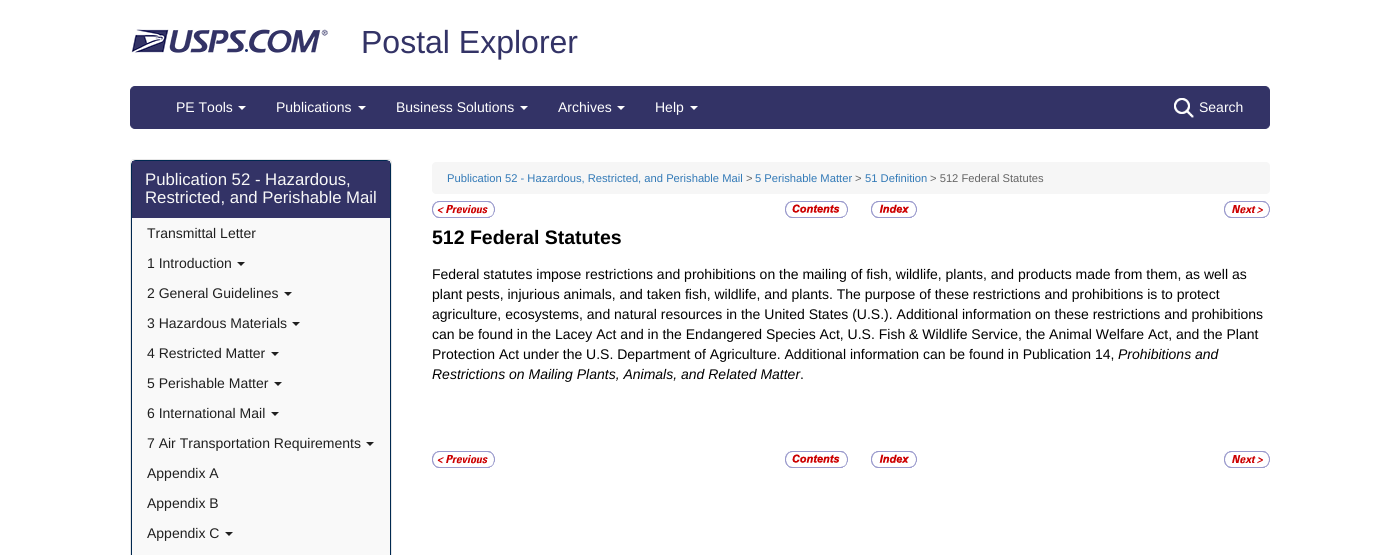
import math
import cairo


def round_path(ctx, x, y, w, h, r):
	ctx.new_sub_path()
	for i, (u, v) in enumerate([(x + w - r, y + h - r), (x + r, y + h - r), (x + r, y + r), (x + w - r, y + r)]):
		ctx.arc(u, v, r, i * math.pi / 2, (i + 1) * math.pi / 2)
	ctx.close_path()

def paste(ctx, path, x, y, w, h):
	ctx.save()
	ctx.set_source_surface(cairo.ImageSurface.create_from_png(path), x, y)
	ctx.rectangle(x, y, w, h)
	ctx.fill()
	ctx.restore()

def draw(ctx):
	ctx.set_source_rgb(1, 1, 1)
	ctx.paint()
	paste(ctx, 'media/1.png', 131, 29, 197, 24)
	ctx.select_font_face('Liberation Sans')
	ctx.set_font_size(32)
	ctx.set_source_rgb(0.2, 0.2, 0.4)
	ctx.move_to(361, 53)
	ctx.show_text('Postal Explorer')
	round_path(ctx, 130.5, 86.5, 1139, 42, 4.5)
	ctx.fill_preserve()
	ctx.set_line_width(1)
	ctx.stroke()
	ctx.set_font_size(14)
	ctx.set_source_rgb(1, 1, 1)
	ctx.move_to(176, 112)
	ctx.show_text('PE Tools')
	ctx.new_path()
	ctx.move_to(238, 106)
	ctx.line_to(246, 106)
	ctx.line_to(242, 110)
	ctx.close_path()
	ctx.fill()
	ctx.move_to(276, 112)
	ctx.show_text('Publications')
	ctx.new_path()
	ctx.move_to(358, 106)
	ctx.line_to(366, 106)
	ctx.line_to(362, 110)
	ctx.close_path()
	ctx.fill()
	ctx.move_to(396, 112)
	ctx.show_text('Business Solutions')
	ctx.new_path()
	ctx.move_to(520, 106)
	ctx.line_to(528, 106)
	ctx.line_to(524, 110)
	ctx.close_path()
	ctx.fill()
	ctx.move_to(558, 112)
	ctx.show_text('Archives')
	ctx.new_path()
	ctx.move_to(617, 106)
	ctx.line_to(625, 106)
	ctx.line_to(621, 110)
	ctx.close_path()
	ctx.fill()
	ctx.move_to(655, 112)
	ctx.show_text('Help')
	ctx.new_path()
	ctx.move_to(690, 106)
	ctx.line_to(698, 106)
	ctx.line_to(694, 110)
	ctx.close_path()
	ctx.fill()
	paste(ctx, 'media/2.png', 1174, 98, 20, 20)
	ctx.move_to(1199, 112)
	ctx.show_text('Search')
	ctx.set_source_rgb(0.973, 0.973, 0.973)
	round_path(ctx, 130.5, 159.5, 261, 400, 3.5)
	ctx.fill_preserve()
	ctx.set_source_rgb(0.906, 0.906, 0.906)
	ctx.stroke()
	round_path(ctx, 131.5, 160.5, 259, 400, 4.5)
	ctx.set_source_rgb(0, 0.157, 0.314)
	ctx.stroke()
	ctx.set_source_rgb(0.2, 0.2, 0.4)
	ctx.rectangle(132, 161, 258, 57)
	ctx.fill()
	ctx.set_font_size(16.75)
	ctx.set_source_rgb(0.969, 0.969, 0.969)
	ctx.move_to(145, 185)
	ctx.show_text('Publication 52 - Hazardous,')
	ctx.move_to(145, 203)
	ctx.show_text('Restricted, and Perishable Mail')
	ctx.set_font_size(14)
	ctx.set_source_rgb(0.125, 0.125, 0.125)
	ctx.move_to(147, 238)
	ctx.show_text('Transmittal Letter')
	ctx.move_to(147, 268)
	ctx.show_text('1 Introduction')
	ctx.new_path()
	ctx.move_to(237, 262)
	ctx.line_to(245, 262)
	ctx.line_to(241, 266)
	ctx.close_path()
	ctx.fill()
	ctx.move_to(147, 298)
	ctx.show_text('2 General Guidelines')
	ctx.new_path()
	ctx.move_to(284, 292)
	ctx.line_to(292, 292)
	ctx.line_to(288, 296)
	ctx.close_path()
	ctx.fill()
	ctx.move_to(147, 328)
	ctx.show_text('3 Hazardous Materials')
	ctx.new_path()
	ctx.move_to(292, 322)
	ctx.line_to(300, 322)
	ctx.line_to(296, 326)
	ctx.close_path()
	ctx.fill()
	ctx.move_to(147, 358)
	ctx.show_text('4 Restricted Matter')
	ctx.new_path()
	ctx.move_to(271, 352)
	ctx.line_to(279, 352)
	ctx.line_to(275, 356)
	ctx.close_path()
	ctx.fill()
	ctx.move_to(147, 388)
	ctx.show_text('5 Perishable Matter')
	ctx.new_path()
	ctx.move_to(274, 382)
	ctx.line_to(282, 382)
	ctx.line_to(278, 386)
	ctx.close_path()
	ctx.fill()
	ctx.move_to(147, 418)
	ctx.show_text('6 International Mail')
	ctx.new_path()
	ctx.move_to(271, 412)
	ctx.line_to(279, 412)
	ctx.line_to(275, 416)
	ctx.close_path()
	ctx.fill()
	ctx.move_to(147, 448)
	ctx.show_text('7 Air Transportation Requirements')
	ctx.new_path()
	ctx.move_to(366, 442)
	ctx.line_to(374, 442)
	ctx.line_to(370, 446)
	ctx.close_path()
	ctx.fill()
	for x, y, s in [
		(147, 478, 'Appendix A'),
		(147, 508, 'Appendix B'),
		(147, 538, 'Appendix C'),
	]:
		ctx.move_to(x, y)
		ctx.show_text(s)
	ctx.new_path()
	ctx.move_to(225, 532)
	ctx.line_to(233, 532)
	ctx.line_to(229, 536)
	ctx.close_path()
	ctx.fill()
	ctx.set_source_rgb(0.961, 0.961, 0.961)
	round_path(ctx, 432, 162, 838, 32, 4)
	ctx.fill()
	ctx.set_font_size(11.2)
	ctx.set_source_rgb(0.2, 0.478, 0.718)
	ctx.move_to(447, 182)
	ctx.show_text('Publication 52 - Hazardous, Restricted, and Perishable Mail')
	ctx.set_source_rgb(0.4, 0.4, 0.4)
	ctx.move_to(746, 182)
	ctx.show_text('>')
	ctx.set_source_rgb(0.2, 0.478, 0.718)
	ctx.move_to(755, 182)
	ctx.show_text('5 Perishable Matter')
	ctx.set_source_rgb(0.4, 0.4, 0.4)
	ctx.move_to(855, 182)
	ctx.show_text('>')
	ctx.set_source_rgb(0.2, 0.478, 0.718)
	ctx.move_to(865, 182)
	ctx.show_text('51 Definition')
	ctx.set_source_rgb(0.4, 0.4, 0.4)
	ctx.move_to(930, 182)
	ctx.show_text('> 512 Federal Statutes')
	paste(ctx, 'media/3.png', 432, 201, 63, 17)
	paste(ctx, 'media/4.png', 785, 201, 63, 17)
	paste(ctx, 'media/5.png', 871, 201, 46, 17)
	paste(ctx, 'media/6.png', 1224, 201, 46, 17)
	ctx.select_font_face('Liberation Sans', cairo.FONT_SLANT_NORMAL, cairo.FONT_WEIGHT_BOLD)
	ctx.set_font_size(19.5)
	ctx.set_source_rgb(0, 0, 0)
	ctx.move_to(432, 244)
	ctx.show_text('512 Federal Statutes')
	ctx.select_font_face('Liberation Sans')
	ctx.set_font_size(14)
	for x, y, s in [
		(432, 279, 'Federal statutes impose restrictions and prohibitions on the mailing of fish, wildlife, plants, and products made from them, as well as'),
		(432, 299, 'plant pests, injurious animals, and taken fish, wildlife, and plants. The purpose of these restrictions and prohibitions is to protect'),
		(432, 319, 'agriculture, ecosystems, and natural resources in the United States (U.S.). Additional information on these restrictions and prohibitions'),
		(432, 339, 'can be found in the Lacey Act and in the Endangered Species Act, U.S. Fish & Wildlife Service, the Animal Welfare Act, and the Plant'),
		(432, 359, 'Protection Act under the U.S. Department of Agriculture. Additional information can be found in Publication 14,'),
	]:
		ctx.move_to(x, y)
		ctx.show_text(s)
	ctx.select_font_face('Liberation Sans', cairo.FONT_SLANT_ITALIC)
	ctx.move_to(1118, 359)
	ctx.show_text('Prohibitions and')
	ctx.move_to(432, 379)
	ctx.show_text('Restrictions on Mailing Plants, Animals, and Related Matter')
	ctx.select_font_face('Liberation Sans')
	ctx.move_to(800, 379)
	ctx.show_text('.')
	paste(ctx, 'media/3.png', 432, 451, 63, 17)
	paste(ctx, 'media/4.png', 785, 451, 63, 17)
	paste(ctx, 'media/5.png', 871, 451, 46, 17)
	paste(ctx, 'media/6.png', 1224, 451, 46, 17)


surface = cairo.ImageSurface(cairo.FORMAT_RGB24, 1399, 555)
ctx = cairo.Context(surface)
options = cairo.FontOptions()
options.set_hint_metrics(cairo.HINT_METRICS_OFF)
options.set_hint_style(cairo.HINT_STYLE_NONE)
ctx.set_font_options(options)
ctx.set_miter_limit(4)
draw(ctx)
surface.write_to_png('image.png')
